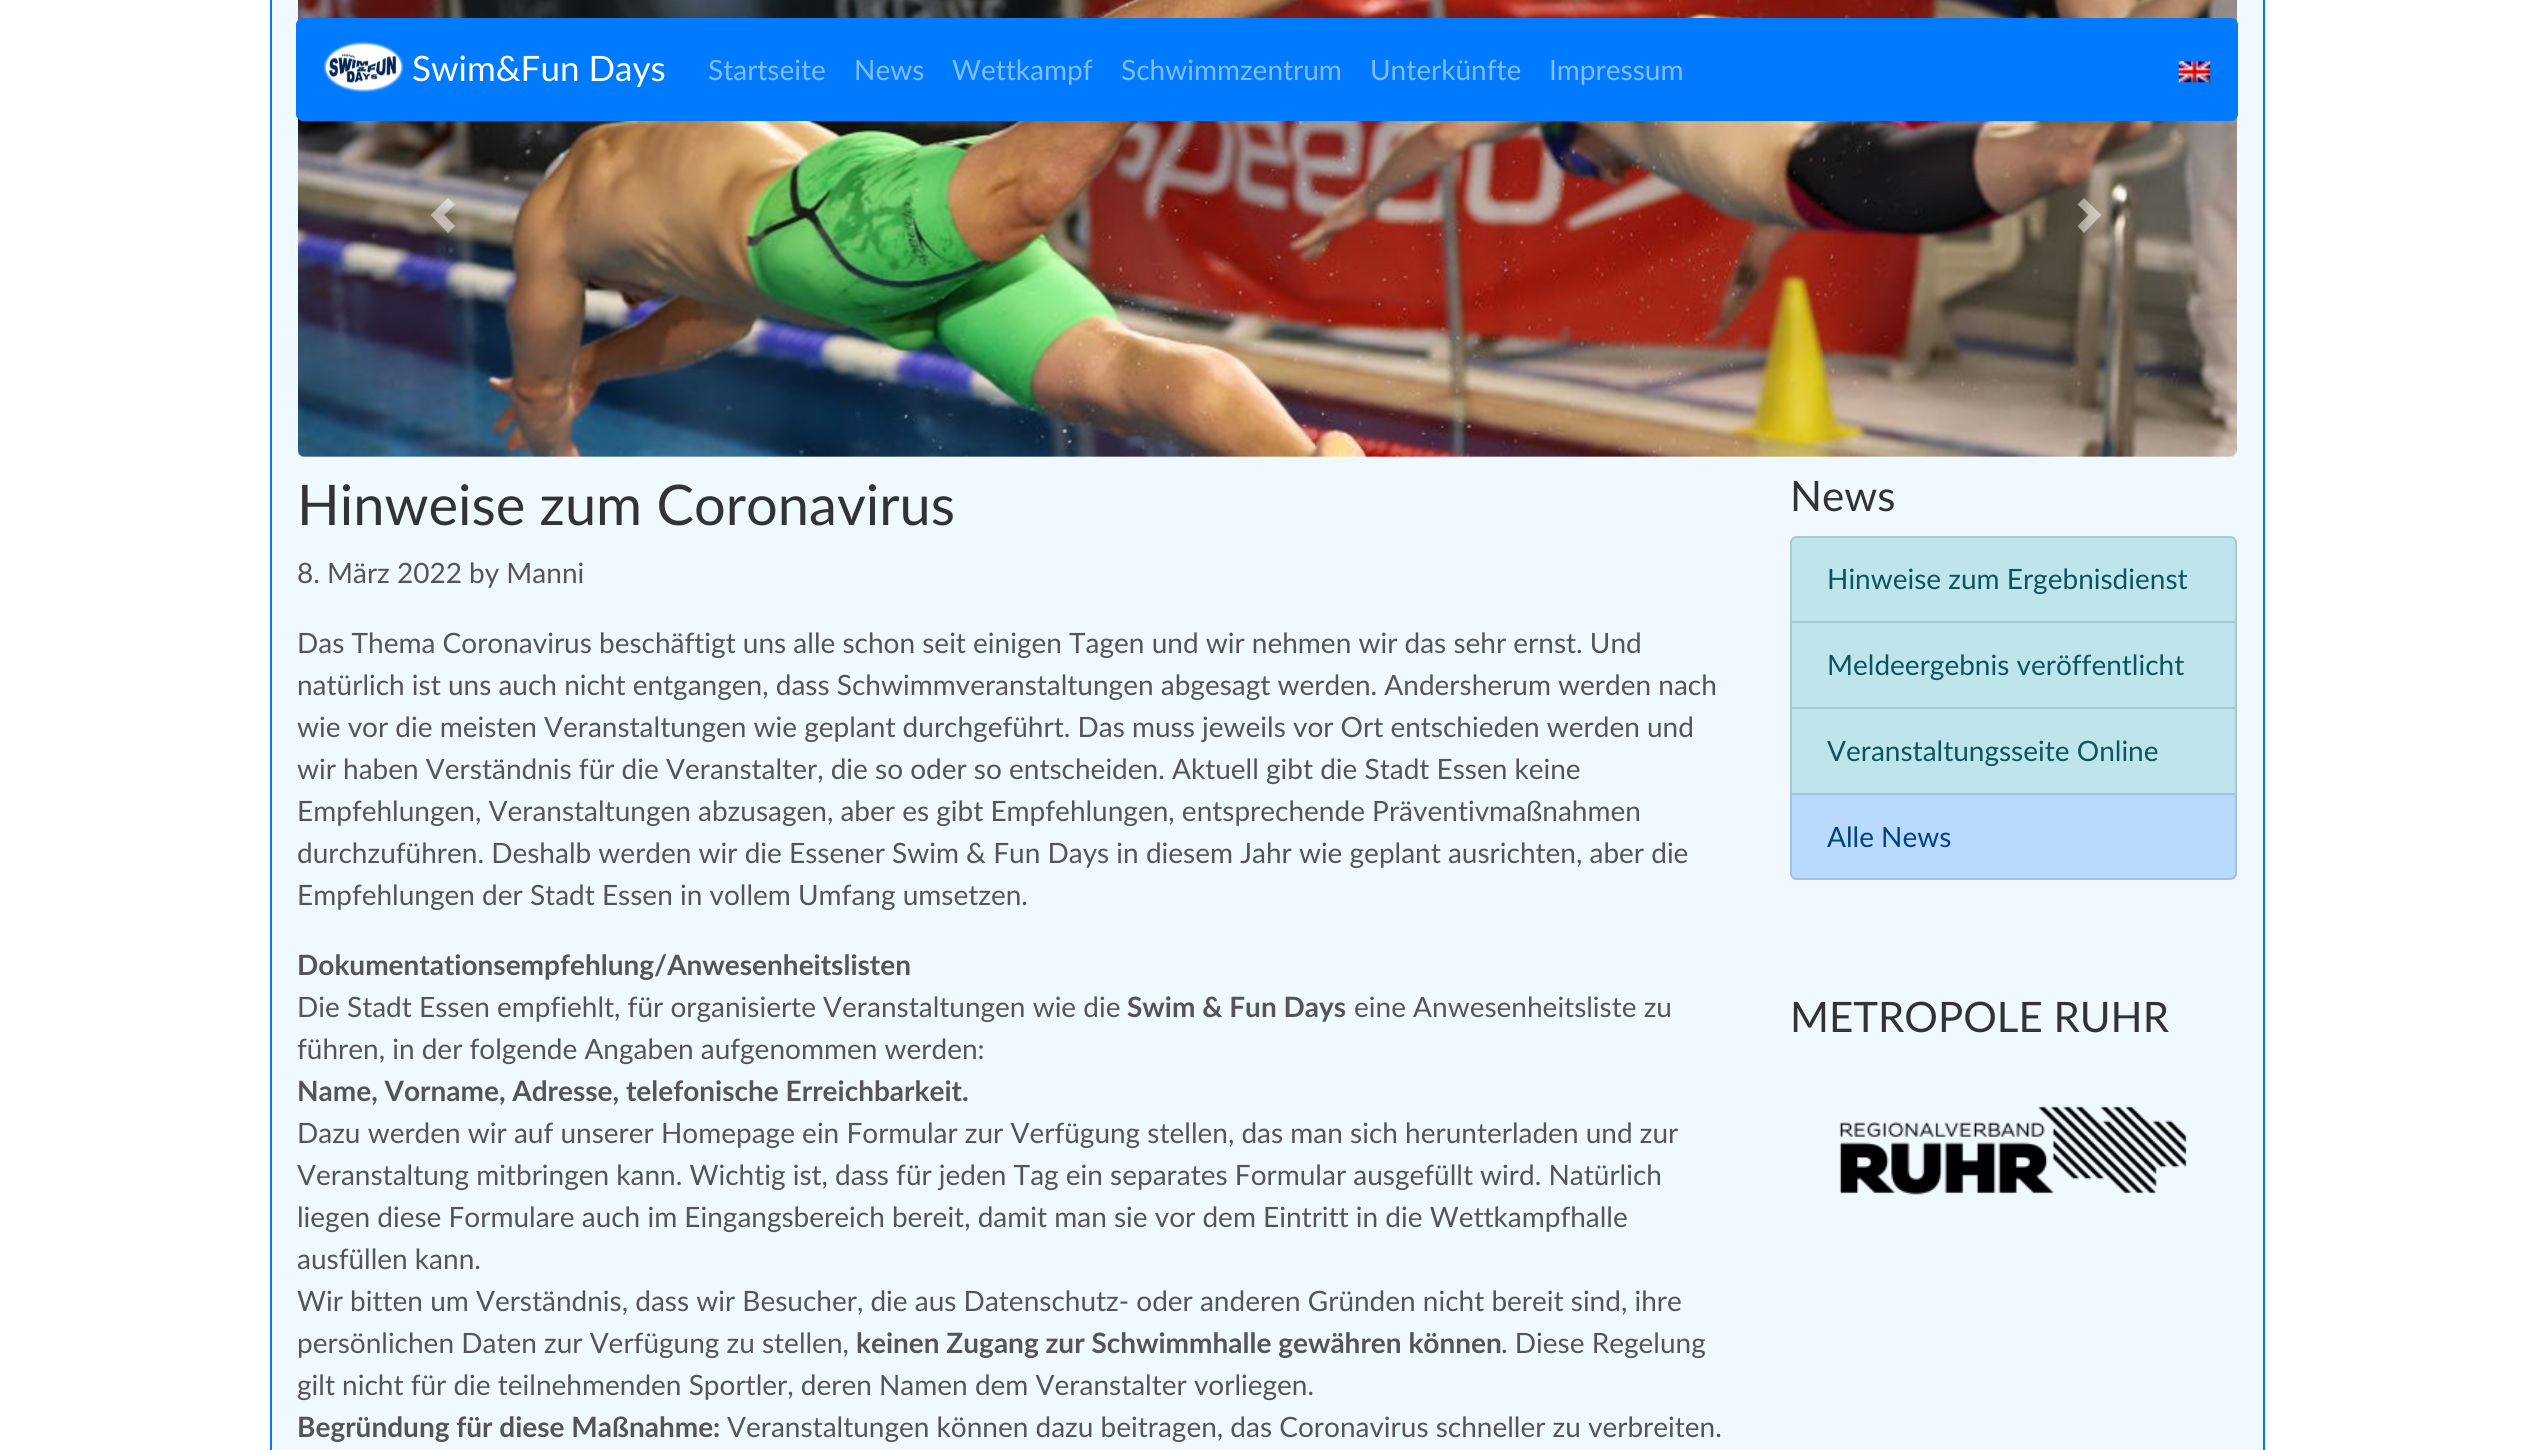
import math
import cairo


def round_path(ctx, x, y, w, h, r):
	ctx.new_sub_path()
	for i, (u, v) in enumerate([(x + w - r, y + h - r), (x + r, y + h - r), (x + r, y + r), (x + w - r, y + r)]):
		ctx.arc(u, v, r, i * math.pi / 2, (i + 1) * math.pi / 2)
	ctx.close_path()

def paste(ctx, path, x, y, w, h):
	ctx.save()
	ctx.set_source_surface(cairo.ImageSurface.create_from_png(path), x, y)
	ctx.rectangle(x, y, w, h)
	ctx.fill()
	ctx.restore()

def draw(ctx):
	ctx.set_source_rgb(1, 1, 1)
	ctx.paint()
	ctx.set_source_rgb(0.941, 0.973, 1)
	ctx.rectangle(271, -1, 1993, 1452)
	ctx.fill_preserve()
	ctx.set_source_rgb(0, 0.482, 1)
	ctx.stroke()
	paste(ctx, 'media/3.png', 298, 0, 1939, 457)
	round_path(ctx, 296, 18, 1942, 103, 7)
	ctx.fill()
	paste(ctx, 'media/1.png', 323, 41, 81, 52)
	ctx.select_font_face('Lato')
	ctx.set_font_size(35)
	ctx.set_source_rgb(1, 1, 1)
	ctx.move_to(412, 81)
	ctx.show_text('Swim&Fun Days')
	ctx.set_font_size(28)
	ctx.set_source_rgb(0.502, 0.741, 1)
	for x, y, s in [
		(708, 80, 'Startseite'),
		(854, 80, 'News'),
		(952, 80, 'Wettkampf'),
		(1121, 80, 'Schwimmzentrum'),
		(1370, 80, 'Unterkünfte'),
		(1549, 80, 'Impressum'),
	]:
		ctx.move_to(x, y)
		ctx.show_text(s)
	paste(ctx, 'media/2.png', 2178, 61, 33, 22)
	ctx.set_source_rgba(1, 1, 1, 0.5)
	ctx.new_path()
	ctx.move_to(448, 198)
	ctx.line_to(430.5, 215)
	ctx.line_to(448, 233)
	ctx.line_to(455, 226)
	ctx.line_to(444, 215)
	ctx.line_to(455, 204.5)
	ctx.close_path()
	ctx.fill()
	ctx.new_path()
	ctx.move_to(2084, 198)
	ctx.line_to(2077.5, 204.5)
	ctx.line_to(2088.5, 215)
	ctx.line_to(2077.5, 226)
	ctx.line_to(2084, 233)
	ctx.line_to(2101.5, 215)
	ctx.close_path()
	ctx.fill()
	ctx.set_font_size(56)
	ctx.set_source_rgb(0.2, 0.2, 0.2)
	ctx.move_to(297, 525)
	ctx.show_text('Hinweise zum Coronavirus')
	ctx.set_font_size(28)
	ctx.set_source_rgb(0.333, 0.333, 0.333)
	for x, y, s in [
		(297, 583, '8. März 2022 by Manni'),
		(297, 653, 'Das Thema Coronavirus beschäftigt uns alle schon seit einigen Tagen und wir nehmen wir das sehr ernst. Und'),
		(297, 695, 'natürlich ist uns auch nicht entgangen, dass Schwimmveranstaltungen abgesagt werden. Andersherum werden nach'),
		(297, 737, 'wie vor die meisten Veranstaltungen wie geplant durchgeführt. Das muss jeweils vor Ort entschieden werden und'),
		(297, 779, 'wir haben Verständnis für die Veranstalter, die so oder so entscheiden. Aktuell gibt die Stadt Essen keine'),
		(297, 821, 'Empfehlungen, Veranstaltungen abzusagen, aber es gibt Empfehlungen, entsprechende Präventivmaßnahmen'),
		(297, 863, 'durchzuführen. Deshalb werden wir die Essener Swim & Fun Days in diesem Jahr wie geplant ausrichten, aber die'),
		(297, 905, 'Empfehlungen der Stadt Essen in vollem Umfang umsetzen.'),
	]:
		ctx.move_to(x, y)
		ctx.show_text(s)
	ctx.select_font_face('Lato', cairo.FONT_SLANT_NORMAL, cairo.FONT_WEIGHT_BOLD)
	ctx.move_to(297, 975)
	ctx.show_text('Dokumentationsempfehlung/Anwesenheitslisten')
	ctx.select_font_face('Lato')
	ctx.move_to(297, 1017)
	ctx.show_text('Die Stadt Essen empfiehlt, für organisierte Veranstaltungen wie die')
	ctx.select_font_face('Lato', cairo.FONT_SLANT_NORMAL, cairo.FONT_WEIGHT_BOLD)
	ctx.move_to(1127, 1017)
	ctx.show_text('Swim & Fun Days')
	ctx.select_font_face('Lato')
	ctx.move_to(1354, 1017)
	ctx.show_text('eine Anwesenheitsliste zu')
	ctx.move_to(297, 1059)
	ctx.show_text('führen, in der folgende Angaben aufgenommen werden:')
	ctx.select_font_face('Lato', cairo.FONT_SLANT_NORMAL, cairo.FONT_WEIGHT_BOLD)
	ctx.move_to(297, 1101)
	ctx.show_text('Name, Vorname, Adresse, telefonische Erreichbarkeit.')
	ctx.select_font_face('Lato')
	for x, y, s in [
		(297, 1143, 'Dazu werden wir auf unserer Homepage ein Formular zur Verfügung stellen, das man sich herunterladen und zur'),
		(297, 1185, 'Veranstaltung mitbringen kann. Wichtig ist, dass für jeden Tag ein separates Formular ausgefüllt wird. Natürlich'),
		(297, 1227, 'liegen diese Formulare auch im Eingangsbereich bereit, damit man sie vor dem Eintritt in die Wettkampfhalle'),
		(297, 1269, 'ausfüllen kann.'),
		(297, 1311, 'Wir bitten um Verständnis, dass wir Besucher, die aus Datenschutz- oder anderen Gründen nicht bereit sind, ihre'),
		(297, 1353, 'persönlichen Daten zur Verfügung zu stellen,'),
	]:
		ctx.move_to(x, y)
		ctx.show_text(s)
	ctx.select_font_face('Lato', cairo.FONT_SLANT_NORMAL, cairo.FONT_WEIGHT_BOLD)
	ctx.move_to(856, 1353)
	ctx.show_text('keinen Zugang zur Schwimmhalle gewähren können')
	ctx.select_font_face('Lato')
	ctx.move_to(1501, 1353)
	ctx.show_text('. Diese Regelung')
	ctx.move_to(297, 1395)
	ctx.show_text('gilt nicht für die teilnehmenden Sportler, deren Namen dem Veranstalter vorliegen.')
	ctx.select_font_face('Lato', cairo.FONT_SLANT_NORMAL, cairo.FONT_WEIGHT_BOLD)
	ctx.move_to(297, 1437)
	ctx.show_text('Begründung für diese Maßnahme:')
	ctx.select_font_face('Lato')
	ctx.move_to(727, 1437)
	ctx.show_text('Veranstaltungen können dazu beitragen, das Coronavirus schneller zu verbreiten.')
	ctx.set_font_size(42)
	ctx.set_source_rgb(0.2, 0.2, 0.2)
	ctx.move_to(1790, 511)
	ctx.show_text('News')
	ctx.set_source_rgb(0.745, 0.898, 0.922)
	ctx.new_path()
	ctx.move_to(1797, 536)
	ctx.line_to(2230, 536)
	ctx.curve_to(2234, 536, 2237, 539, 2237, 543)
	ctx.line_to(2237, 623)
	ctx.line_to(1790, 623)
	ctx.line_to(1790, 543)
	ctx.curve_to(1790, 539, 1793, 536, 1797, 536)
	ctx.close_path()
	ctx.fill()
	ctx.new_path()
	ctx.move_to(1797, 537)
	ctx.line_to(2230, 537)
	ctx.curve_to(2233.5, 537, 2236, 539.5, 2236, 543)
	ctx.line_to(2236, 622)
	ctx.line_to(1791, 622)
	ctx.line_to(1791, 543)
	ctx.curve_to(1791, 539.5, 1793.5, 537, 1797, 537)
	ctx.close_path()
	ctx.set_source_rgba(0, 0, 0, 0.12)
	ctx.stroke()
	ctx.set_font_size(28)
	ctx.set_source_rgb(0.047, 0.329, 0.376)
	ctx.move_to(1827, 589)
	ctx.show_text('Hinweise zum Ergebnisdienst')
	ctx.set_source_rgb(0.745, 0.898, 0.922)
	ctx.rectangle(1791, 622, 445, 86)
	ctx.fill_preserve()
	ctx.set_source_rgb(0.651, 0.784, 0.808)
	ctx.stroke()
	ctx.set_source_rgb(0.047, 0.329, 0.376)
	ctx.move_to(1827, 675)
	ctx.show_text('Meldeergebnis veröffentlicht')
	ctx.set_source_rgb(0.745, 0.898, 0.922)
	ctx.rectangle(1791, 708, 445, 86)
	ctx.fill_preserve()
	ctx.set_source_rgb(0.651, 0.784, 0.808)
	ctx.stroke()
	ctx.set_source_rgb(0.047, 0.329, 0.376)
	ctx.move_to(1827, 761)
	ctx.show_text('Veranstaltungsseite Online')
	ctx.set_source_rgb(0.722, 0.855, 1)
	ctx.new_path()
	ctx.move_to(1790, 793)
	ctx.line_to(2237, 793)
	ctx.line_to(2237, 873)
	ctx.curve_to(2237, 877, 2234, 880, 2230, 880)
	ctx.line_to(1797, 880)
	ctx.curve_to(1793, 880, 1790, 877, 1790, 873)
	ctx.close_path()
	ctx.fill()
	ctx.new_path()
	ctx.move_to(1791, 794)
	ctx.line_to(2236, 794)
	ctx.line_to(2236, 873)
	ctx.curve_to(2236, 876.5, 2233.5, 879, 2230, 879)
	ctx.line_to(1797, 879)
	ctx.curve_to(1793.5, 879, 1791, 876.5, 1791, 873)
	ctx.close_path()
	ctx.set_source_rgba(0, 0, 0, 0.12)
	ctx.stroke()
	ctx.set_source_rgb(0, 0.251, 0.522)
	ctx.move_to(1827, 847)
	ctx.show_text('Alle News')
	ctx.set_font_size(42)
	ctx.set_source_rgb(0.2, 0.2, 0.2)
	ctx.move_to(1790, 1032)
	ctx.show_text('METROPOLE RUHR')
	paste(ctx, 'media/4.png', 1839, 1105, 348, 90)


surface = cairo.ImageSurface(cairo.FORMAT_RGB24, 2531, 1450)
ctx = cairo.Context(surface)
options = cairo.FontOptions()
options.set_hint_metrics(cairo.HINT_METRICS_OFF)
options.set_hint_style(cairo.HINT_STYLE_NONE)
ctx.set_font_options(options)
ctx.set_miter_limit(4)
draw(ctx)
surface.write_to_png('image.png')
